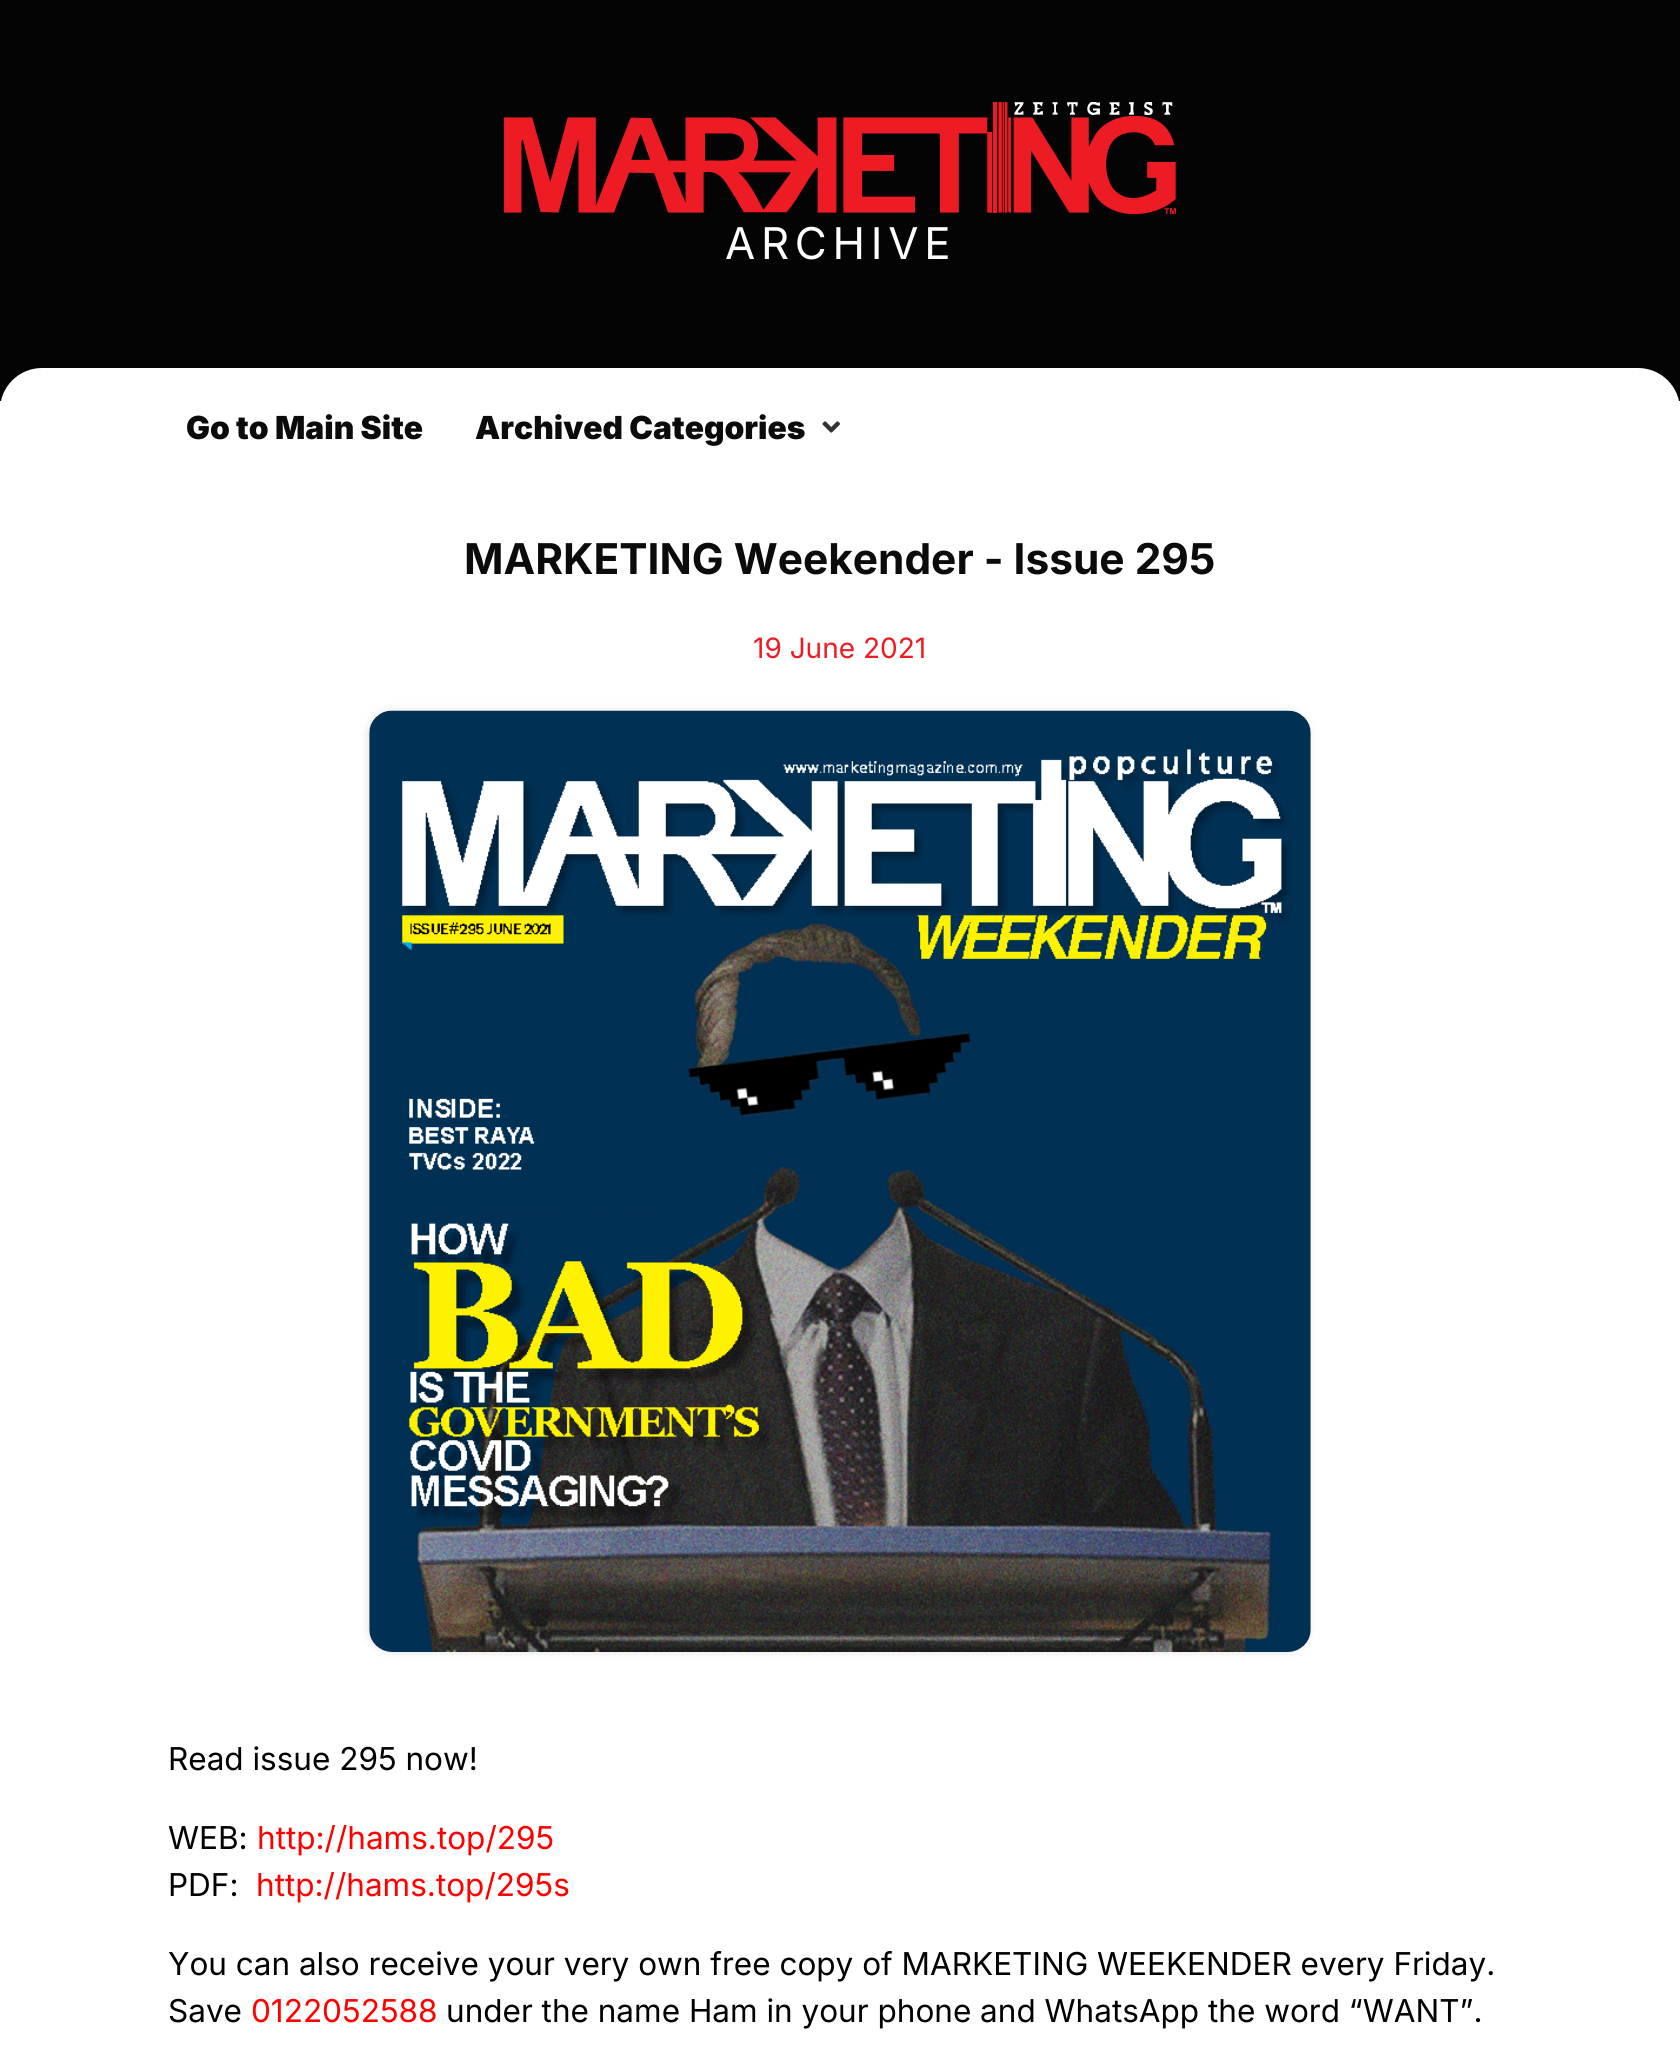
import math
import cairo


def write_spaced(ctx, x, y, s, letter, word):
	ctx.move_to(x, y)
	for ch in s:
		ctx.show_text(ch)
		ctx.rel_move_to(letter + word * (ch == ' '), 0)

def round_path(ctx, x, y, w, h, r):
	ctx.new_sub_path()
	for i, (u, v) in enumerate([(x + w - r, y + h - r), (x + r, y + h - r), (x + r, y + r), (x + w - r, y + r)]):
		ctx.arc(u, v, r, i * math.pi / 2, (i + 1) * math.pi / 2)
	ctx.close_path()

def blur_box(ctx, x, y, w, h, r, blur, alpha):
	ctx.push_group_with_content(cairo.CONTENT_ALPHA)
	ctx.set_operator(cairo.OPERATOR_SOURCE)
	for i in range(15, -16, -2):
		e = blur * i / 6
		if min(w, h) + 2 * e > 0:
			ctx.set_source_rgba(0, 0, 0, alpha * math.erfc((i - 1) / 8.5) / 2)
			round_path(ctx, x - e, y - e, w + 2 * e, h + 2 * e, max(0, min(r + e + blur * .6, min(w, h) / 2 + e)))
			ctx.fill()
	ctx.mask(ctx.pop_group())

def paste(ctx, path, x, y, w, h):
	ctx.save()
	ctx.set_source_surface(cairo.ImageSurface.create_from_png(path), x, y)
	ctx.rectangle(x, y, w, h)
	ctx.fill()
	ctx.restore()

def draw(ctx):
	ctx.set_source_rgb(1, 1, 1)
	ctx.paint()
	ctx.set_source_rgb(0.016, 0.016, 0.016)
	ctx.rectangle(0, 0, 1680, 401)
	ctx.fill()
	paste(ctx, 'media/1.png', 504, 102, 672, 112)
	ctx.select_font_face('Inter')
	ctx.set_font_size(43.75)
	ctx.set_source_rgb(1, 1, 1)
	write_spaced(ctx, 725, 259, 'ARCHIVE', 5.75, 0)
	round_path(ctx, 0, 368, 1680, 119, 42)
	ctx.fill()
	ctx.select_font_face('Inter Black')
	ctx.set_font_size(31.75)
	ctx.set_source_rgb(0.043, 0.043, 0.043)
	ctx.move_to(186, 439)
	ctx.show_text('Go to Main Site')
	ctx.move_to(475, 439)
	ctx.show_text('Archived Categories')
	paste(ctx, 'media/2.png', 822, 421, 18, 12)
	ctx.select_font_face('Inter', cairo.FONT_SLANT_NORMAL, cairo.FONT_WEIGHT_BOLD)
	ctx.set_font_size(42.4)
	ctx.move_to(464, 574)
	ctx.show_text('MARKETING Weekender - Issue 295')
	ctx.select_font_face('Inter')
	ctx.set_font_size(28)
	ctx.set_source_rgb(0.929, 0.11, 0.141)
	ctx.move_to(753, 658)
	ctx.show_text('19 June 2021')
	ctx.set_source_rgb(0.776, 0.776, 0.776)
	blur_box(ctx, 368, 711, 941, 941, 23, 4.5, 0.5)
	paste(ctx, 'media/3.png', 369, 710, 942, 942)
	ctx.set_font_size(31.5)
	ctx.set_source_rgb(0, 0, 0)
	ctx.move_to(168, 1770)
	ctx.show_text('Read issue 295 now!')
	ctx.move_to(168, 1849)
	ctx.show_text('WEB:')
	ctx.set_source_rgb(1, 0, 0)
	ctx.move_to(257, 1849)
	ctx.show_text('http://hams.top/295')
	ctx.set_source_rgb(0, 0, 0)
	ctx.move_to(168, 1896)
	ctx.show_text('PDF:')
	ctx.set_source_rgb(1, 0, 0)
	ctx.move_to(256, 1896)
	ctx.show_text('http://hams.top/295s')
	ctx.set_source_rgb(0, 0, 0)
	ctx.move_to(168, 1975)
	ctx.show_text('You can also receive your very own free copy of MARKETING WEEKENDER every Friday.')
	ctx.move_to(168, 2022)
	ctx.show_text('Save')
	ctx.set_source_rgb(1, 0, 0)
	ctx.move_to(251, 2022)
	ctx.show_text('0122052588')
	ctx.set_source_rgb(0, 0, 0)
	ctx.move_to(446, 2022)
	ctx.show_text('under the name Ham in your phone and WhatsApp the word “WANT”.')


surface = cairo.ImageSurface(cairo.FORMAT_RGB24, 1680, 2057)
ctx = cairo.Context(surface)
options = cairo.FontOptions()
options.set_hint_metrics(cairo.HINT_METRICS_OFF)
options.set_hint_style(cairo.HINT_STYLE_NONE)
ctx.set_font_options(options)
ctx.set_miter_limit(4)
draw(ctx)
surface.write_to_png('image.png')
